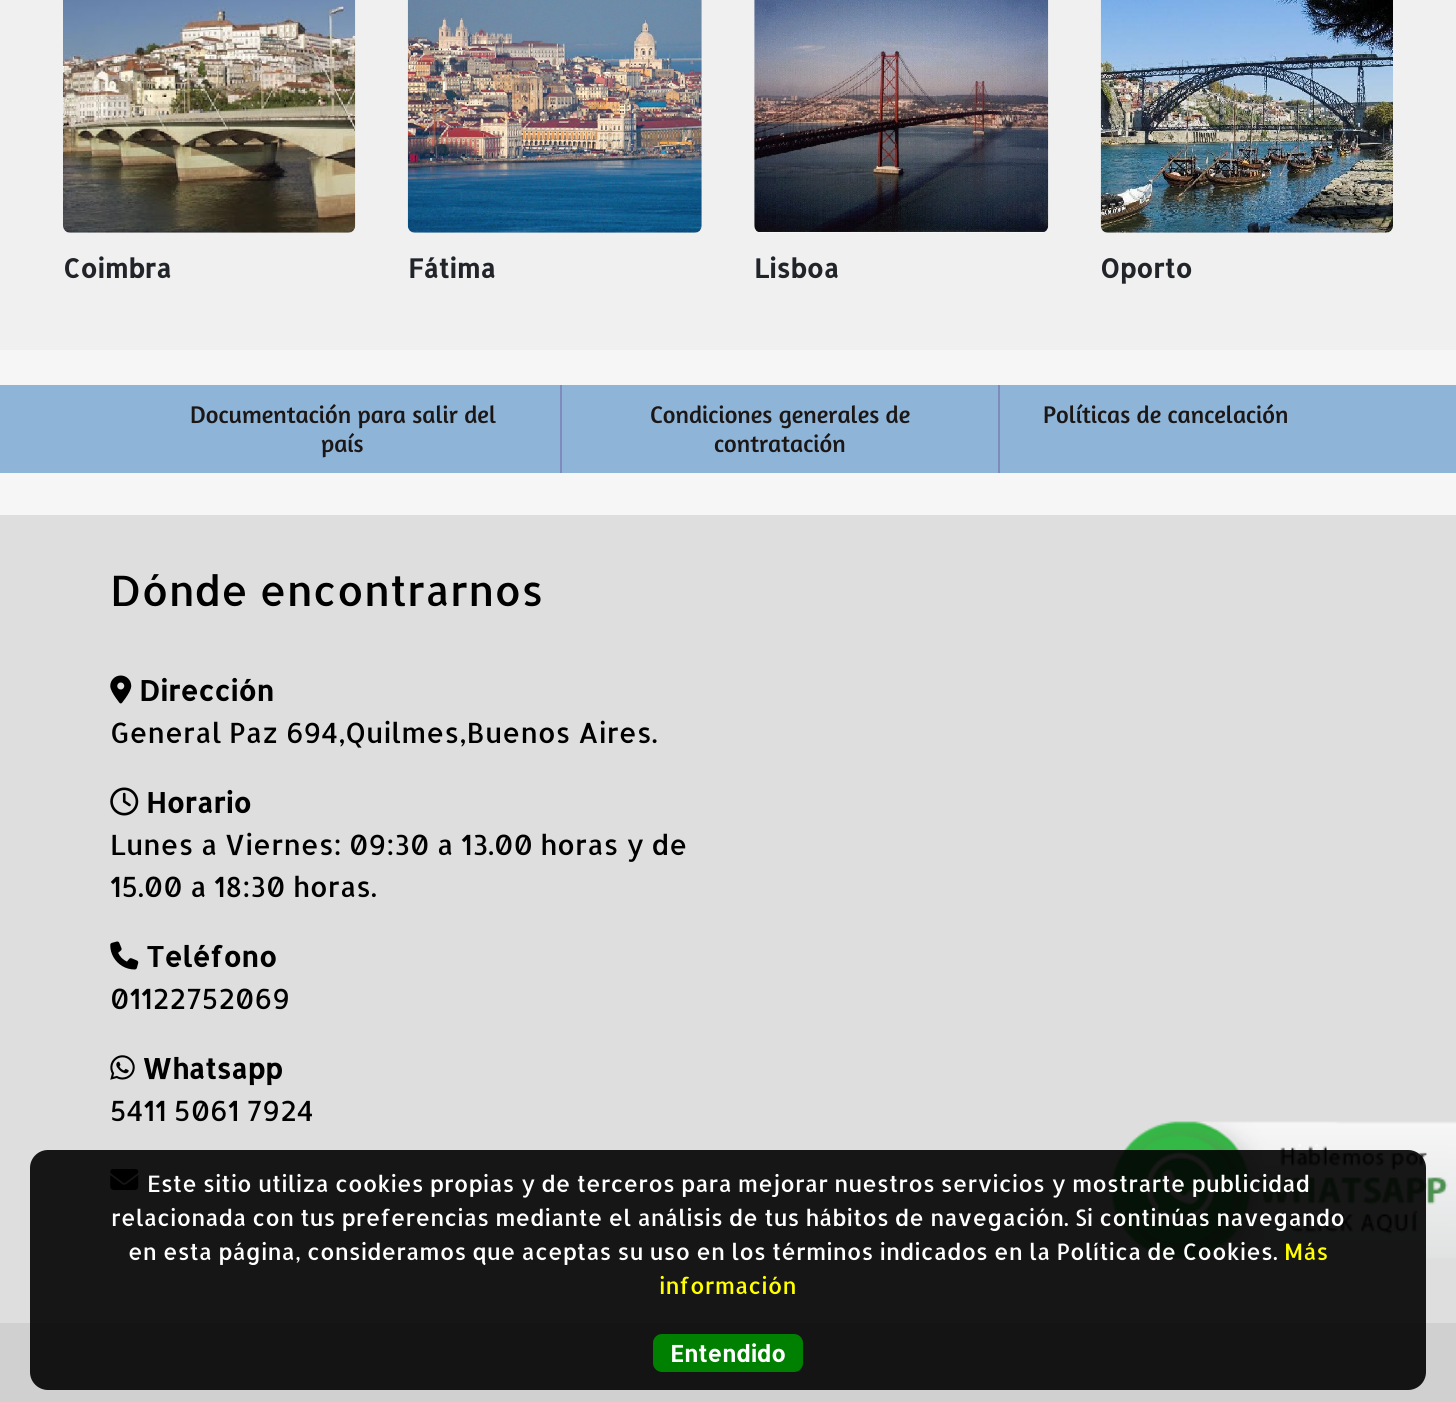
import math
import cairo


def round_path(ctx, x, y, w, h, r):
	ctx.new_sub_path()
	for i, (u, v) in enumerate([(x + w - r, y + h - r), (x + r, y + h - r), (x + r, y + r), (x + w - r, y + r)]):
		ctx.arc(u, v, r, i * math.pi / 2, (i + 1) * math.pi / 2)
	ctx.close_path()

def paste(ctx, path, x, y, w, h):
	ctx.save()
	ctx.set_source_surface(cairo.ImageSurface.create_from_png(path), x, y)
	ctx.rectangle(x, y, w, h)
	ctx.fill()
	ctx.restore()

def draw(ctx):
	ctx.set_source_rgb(0.941, 0.941, 0.941)
	ctx.paint()
	paste(ctx, 'media/1.png', 63, 0, 293, 233)
	ctx.select_font_face('Allerta', cairo.FONT_SLANT_NORMAL, cairo.FONT_WEIGHT_BOLD)
	ctx.set_font_size(26.25)
	ctx.set_source_rgb(0.129, 0.145, 0.161)
	ctx.move_to(63, 278)
	ctx.show_text('Coimbra')
	paste(ctx, 'media/2.png', 407, 0, 295, 233)
	ctx.move_to(408, 278)
	ctx.show_text('Fátima')
	paste(ctx, 'media/3.png', 754, 0, 295, 233)
	ctx.move_to(754, 278)
	ctx.show_text('Lisboa')
	paste(ctx, 'media/4.png', 1100, 0, 293, 233)
	ctx.move_to(1100, 278)
	ctx.show_text('Oporto')
	ctx.set_source_rgb(0.871, 0.871, 0.871)
	ctx.rectangle(0, 515, 1456, 808)
	ctx.fill()
	paste(ctx, 'media/5.png', 1110, 1121, 346, 138)
	ctx.set_source_rgb(0.961, 0.961, 0.961)
	ctx.rectangle(0, 350, 1456, 165)
	ctx.fill()
	ctx.set_source_rgb(0.557, 0.706, 0.843)
	ctx.rectangle(0, 385, 1456, 88)
	ctx.fill()
	ctx.set_source_rgb(0.498, 0.545, 0.741)
	ctx.rectangle(560, 385, 2, 88)
	ctx.fill()
	ctx.select_font_face('Amaranth')
	ctx.set_font_size(24.5)
	ctx.set_source_rgb(0.11, 0.09, 0.09)
	ctx.move_to(190, 423)
	ctx.show_text('Documentación para salir del')
	ctx.move_to(321, 452)
	ctx.show_text('país')
	ctx.set_source_rgb(0.498, 0.545, 0.741)
	ctx.rectangle(998, 385, 2, 88)
	ctx.fill()
	ctx.set_source_rgb(0.11, 0.09, 0.09)
	for x, y, s in [
		(650, 423, 'Condiciones generales de'),
		(714, 452, 'contratación'),
		(1043, 423, 'Políticas de cancelación'),
	]:
		ctx.move_to(x, y)
		ctx.show_text(s)
	ctx.select_font_face('Allerta')
	ctx.set_font_size(42)
	ctx.set_source_rgb(0, 0, 0)
	ctx.move_to(110, 606)
	ctx.show_text('Dónde encontrarnos')
	paste(ctx, 'media/6.png', 110, 675, 22, 29)
	ctx.select_font_face('Allerta', cairo.FONT_SLANT_NORMAL, cairo.FONT_WEIGHT_BOLD)
	ctx.set_font_size(28)
	ctx.move_to(139, 701)
	ctx.show_text('Dirección')
	ctx.select_font_face('Allerta')
	ctx.move_to(110, 743)
	ctx.show_text('General Paz 694,Quilmes,Buenos Aires.')
	paste(ctx, 'media/7.png', 110, 787, 29, 29)
	ctx.select_font_face('Allerta', cairo.FONT_SLANT_NORMAL, cairo.FONT_WEIGHT_BOLD)
	ctx.move_to(146, 813)
	ctx.show_text('Horario')
	ctx.select_font_face('Allerta')
	ctx.move_to(110, 855)
	ctx.show_text('Lunes a Viernes: 09:30 a 13.00 horas y de')
	ctx.move_to(110, 897)
	ctx.show_text('15.00 a 18:30 horas.')
	paste(ctx, 'media/8.png', 110, 941, 29, 29)
	ctx.select_font_face('Allerta', cairo.FONT_SLANT_NORMAL, cairo.FONT_WEIGHT_BOLD)
	ctx.move_to(146, 967)
	ctx.show_text('Teléfono')
	ctx.select_font_face('Allerta')
	ctx.move_to(110, 1009)
	ctx.show_text('01122752069')
	paste(ctx, 'media/9.png', 110, 1055, 25, 25)
	ctx.select_font_face('Allerta', cairo.FONT_SLANT_NORMAL, cairo.FONT_WEIGHT_BOLD)
	ctx.move_to(142, 1079)
	ctx.show_text('Whatsapp')
	ctx.select_font_face('Allerta')
	ctx.move_to(110, 1121)
	ctx.show_text('5411 5061 7924')
	paste(ctx, 'media/10.png', 110, 1169, 29, 21)
	ctx.set_source_rgb(0.816, 0.816, 0.816)
	ctx.rectangle(0, 1323, 1456, 79)
	ctx.fill()
	ctx.set_source_rgba(0, 0, 0, 0.9)
	round_path(ctx, 30, 1150, 1396, 240, 18)
	ctx.fill()
	ctx.set_font_size(22.75)
	ctx.set_source_rgb(1, 1, 1)
	for x, y, s in [
		(147, 1192, 'Este sitio utiliza cookies propias y de terceros para mejorar nuestros servicios y mostrarte publicidad'),
		(111, 1226, 'relacionada con tus preferencias mediante el análisis de tus hábitos de navegación. Si continúas navegando'),
		(128, 1260, 'en esta página, consideramos que aceptas su uso en los términos indicados en la Política de Cookies.'),
	]:
		ctx.move_to(x, y)
		ctx.show_text(s)
	ctx.set_source_rgb(1, 1, 0)
	ctx.move_to(1284, 1260)
	ctx.show_text('Más')
	ctx.move_to(659, 1294)
	ctx.show_text('información')
	ctx.set_source_rgb(0, 0.502, 0)
	round_path(ctx, 653, 1334, 150, 38, 9)
	ctx.fill()
	ctx.select_font_face('Allerta', cairo.FONT_SLANT_NORMAL, cairo.FONT_WEIGHT_BOLD)
	ctx.set_source_rgb(1, 1, 1)
	ctx.move_to(670, 1362)
	ctx.show_text('Entendido')


surface = cairo.ImageSurface(cairo.FORMAT_RGB24, 1456, 1402)
ctx = cairo.Context(surface)
options = cairo.FontOptions()
options.set_hint_metrics(cairo.HINT_METRICS_OFF)
options.set_hint_style(cairo.HINT_STYLE_NONE)
ctx.set_font_options(options)
ctx.set_miter_limit(4)
draw(ctx)
surface.write_to_png('image.png')
